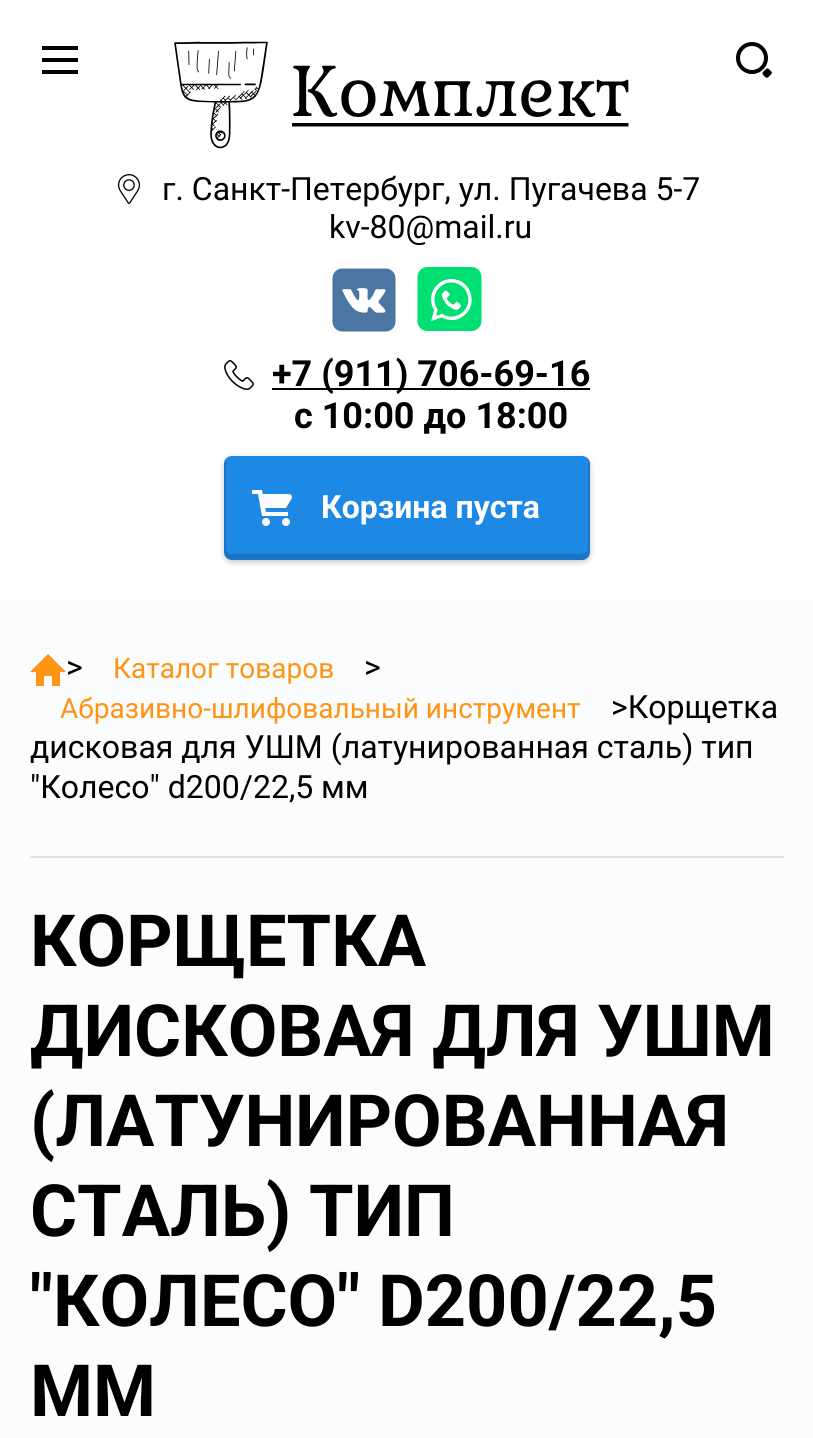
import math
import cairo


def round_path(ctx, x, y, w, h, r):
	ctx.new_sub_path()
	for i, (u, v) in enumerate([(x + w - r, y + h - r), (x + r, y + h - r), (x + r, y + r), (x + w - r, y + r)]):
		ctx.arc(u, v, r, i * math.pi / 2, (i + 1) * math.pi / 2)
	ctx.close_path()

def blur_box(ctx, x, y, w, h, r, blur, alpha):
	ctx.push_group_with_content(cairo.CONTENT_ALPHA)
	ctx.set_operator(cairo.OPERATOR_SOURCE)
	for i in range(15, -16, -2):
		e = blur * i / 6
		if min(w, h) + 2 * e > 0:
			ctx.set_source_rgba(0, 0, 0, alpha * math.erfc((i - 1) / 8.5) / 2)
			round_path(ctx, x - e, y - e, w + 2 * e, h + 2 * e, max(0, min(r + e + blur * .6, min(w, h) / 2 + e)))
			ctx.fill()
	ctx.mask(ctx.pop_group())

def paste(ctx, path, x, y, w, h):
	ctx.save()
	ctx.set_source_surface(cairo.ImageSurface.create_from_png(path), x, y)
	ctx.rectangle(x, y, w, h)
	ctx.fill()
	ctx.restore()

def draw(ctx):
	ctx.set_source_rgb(1, 1, 1)
	ctx.paint()
	ctx.set_source_rgb(0, 0, 0)
	ctx.set_fill_rule(cairo.FILL_RULE_EVEN_ODD)
	ctx.new_path()
	ctx.move_to(42, 74)
	ctx.line_to(42, 70)
	ctx.line_to(78, 70)
	ctx.line_to(78, 74)
	ctx.close_path()
	ctx.move_to(42, 58)
	ctx.line_to(78, 58)
	ctx.line_to(78, 62)
	ctx.line_to(42, 62)
	ctx.close_path()
	ctx.move_to(42, 46)
	ctx.line_to(78, 46)
	ctx.line_to(78, 50)
	ctx.line_to(42, 50)
	ctx.close_path()
	ctx.fill()
	paste(ctx, 'media/1.png', 736, 42, 36, 36)
	paste(ctx, 'media/2.png', 174, 41, 455, 108)
	paste(ctx, 'media/3.png', 117, 174, 24, 30)
	ctx.select_font_face('Roboto')
	ctx.set_font_size(32)
	ctx.move_to(162, 200)
	ctx.show_text('г. Санкт-Петербург, ул. Пугачева 5-7')
	ctx.move_to(329, 238)
	ctx.show_text('kv-80@mail.ru')
	paste(ctx, 'media/4.png', 332, 268, 64, 64)
	paste(ctx, 'media/5.png', 417, 267, 65, 64)
	paste(ctx, 'media/6.png', 224, 360, 30, 30)
	ctx.rectangle(272, 388, 318, 2)
	ctx.fill()
	ctx.select_font_face('Roboto', cairo.FONT_SLANT_NORMAL, cairo.FONT_WEIGHT_BOLD)
	ctx.set_font_size(36)
	ctx.move_to(272, 386)
	ctx.show_text('+7 (911) 706-69-16')
	ctx.move_to(294, 428)
	ctx.show_text('с 10:00 до 18:00')
	ctx.set_source_rgb(0, 0, 0)
	blur_box(ctx, 224, 458, 366, 104, 8, 3, 0.24)
	ctx.set_source_rgb(0.118, 0.533, 0.898)
	round_path(ctx, 224, 456, 366, 104, 8)
	ctx.fill()
	ctx.set_source_rgba(0, 0, 0, 0.14)
	ctx.set_fill_rule(cairo.FILL_RULE_WINDING)
	ctx.new_path()
	ctx.move_to(226, 458)
	ctx.curve_to(225, 460, 224, 462, 224, 464)
	ctx.line_to(224, 552)
	ctx.curve_to(224, 556, 228, 560, 232, 560)
	ctx.line_to(582, 560)
	ctx.curve_to(586, 560, 590, 556, 590, 552)
	ctx.line_to(590, 464)
	ctx.curve_to(590, 462, 589, 460, 588, 458)
	ctx.line_to(588, 548)
	ctx.curve_to(588, 551, 585, 554, 582, 554)
	ctx.line_to(232, 554)
	ctx.curve_to(229, 554, 226, 551, 226, 548)
	ctx.close_path()
	ctx.fill()
	paste(ctx, 'media/7.png', 252, 490, 40, 36)
	ctx.set_font_size(32)
	ctx.set_source_rgb(1, 1, 1)
	ctx.move_to(321, 518)
	ctx.show_text('Корзина пуста')
	ctx.set_source_rgb(0.984, 0.988, 0.992)
	round_path(ctx, 0, 600, 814, 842, 4)
	ctx.fill()
	ctx.set_source_rgb(0.882, 0.886, 0.89)
	ctx.rectangle(30, 856, 754, 2)
	ctx.fill()
	ctx.set_source_rgb(1, 0.576, 0.078)
	ctx.set_fill_rule(cairo.FILL_RULE_EVEN_ODD)
	ctx.new_path()
	ctx.move_to(60, 672)
	ctx.line_to(60, 686)
	ctx.line_to(52, 686)
	ctx.line_to(52, 676)
	ctx.line_to(44, 676)
	ctx.line_to(44, 686)
	ctx.line_to(36, 686)
	ctx.line_to(36, 672)
	ctx.line_to(30, 672)
	ctx.line_to(48, 654)
	ctx.line_to(66, 672)
	ctx.close_path()
	ctx.fill()
	ctx.select_font_face('Roboto')
	ctx.set_source_rgb(0, 0, 0)
	ctx.move_to(66, 678)
	ctx.show_text('>')
	ctx.set_font_size(28)
	ctx.set_source_rgb(1, 0.576, 0.078)
	ctx.move_to(113, 678)
	ctx.show_text('Каталог товаров')
	ctx.set_font_size(32)
	ctx.set_source_rgb(0, 0, 0)
	ctx.move_to(364, 678)
	ctx.show_text('>')
	ctx.set_font_size(28)
	ctx.set_source_rgb(1, 0.576, 0.078)
	ctx.move_to(60, 718)
	ctx.show_text('Абразивно-шлифовальный инструмент')
	ctx.set_font_size(32)
	ctx.set_source_rgb(0, 0, 0)
	for x, y, s in [
		(611, 718, '>Корщетка'),
		(30, 758, 'дисковая для УШМ (латунированная сталь) тип'),
		(30, 798, '"Колесо" d200/22,5 мм'),
	]:
		ctx.move_to(x, y)
		ctx.show_text(s)
	ctx.select_font_face('Roboto', cairo.FONT_SLANT_NORMAL, cairo.FONT_WEIGHT_BOLD)
	ctx.set_font_size(72)
	for x, y, s in [
		(30, 966, 'КОРЩЕТКА'),
		(30, 1056, 'ДИСКОВАЯ ДЛЯ УШМ'),
		(30, 1146, '(ЛАТУНИРОВАННАЯ'),
		(30, 1236, 'СТАЛЬ) ТИП'),
		(30, 1326, '"КОЛЕСО" D200/22,5'),
		(30, 1416, 'ММ'),
	]:
		ctx.move_to(x, y)
		ctx.show_text(s)


surface = cairo.ImageSurface(cairo.FORMAT_RGB24, 813, 1438)
ctx = cairo.Context(surface)
options = cairo.FontOptions()
options.set_hint_metrics(cairo.HINT_METRICS_OFF)
options.set_hint_style(cairo.HINT_STYLE_NONE)
ctx.set_font_options(options)
ctx.set_miter_limit(4)
draw(ctx)
surface.write_to_png('image.png')
